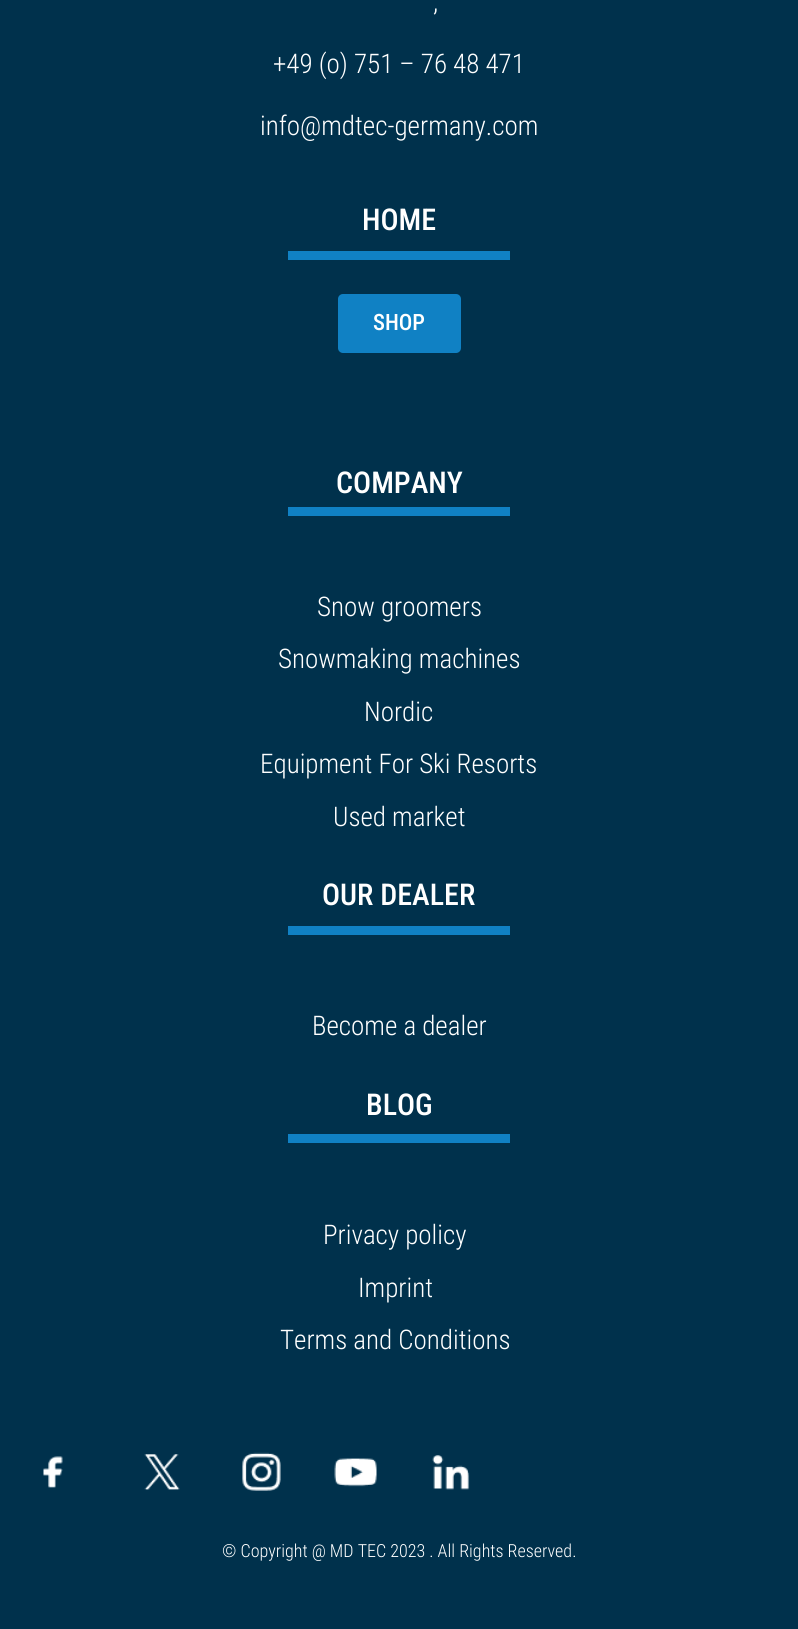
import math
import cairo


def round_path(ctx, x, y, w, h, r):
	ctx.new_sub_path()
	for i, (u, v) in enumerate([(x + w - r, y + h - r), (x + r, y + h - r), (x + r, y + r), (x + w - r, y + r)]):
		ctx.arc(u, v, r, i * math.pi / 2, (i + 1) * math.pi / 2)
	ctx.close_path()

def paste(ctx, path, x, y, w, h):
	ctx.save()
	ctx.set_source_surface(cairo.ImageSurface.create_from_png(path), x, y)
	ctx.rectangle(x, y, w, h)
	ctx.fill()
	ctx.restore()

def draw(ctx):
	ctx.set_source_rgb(0, 0.192, 0.298)
	ctx.paint()
	ctx.select_font_face('Roboto Condensed Light')
	ctx.set_font_size(27)
	ctx.set_source_rgb(1, 1, 1)
	for x, y, s in [
		(433, 11, ','),
		(273, 73, '+49 (o) 751 – 76 48 471'),
		(260, 135, 'info@mdtec-germany.com'),
	]:
		ctx.move_to(x, y)
		ctx.show_text(s)
	ctx.select_font_face('Roboto Condensed Medium')
	ctx.set_font_size(30)
	ctx.move_to(362, 230)
	ctx.show_text('HOME')
	ctx.set_source_rgb(0.063, 0.506, 0.769)
	ctx.rectangle(288, 251, 222, 9)
	ctx.fill()
	round_path(ctx, 338, 294, 123, 59, 5)
	ctx.fill()
	ctx.set_font_size(22.5)
	ctx.set_source_rgb(1, 1, 1)
	ctx.move_to(373, 330)
	ctx.show_text('SHOP')
	ctx.set_font_size(30)
	ctx.move_to(336, 493)
	ctx.show_text('COMPANY')
	ctx.set_source_rgb(0.063, 0.506, 0.769)
	ctx.rectangle(288, 507, 222, 9)
	ctx.fill()
	ctx.select_font_face('Roboto Condensed Light')
	ctx.set_font_size(27)
	ctx.set_source_rgb(1, 1, 1)
	for x, y, s in [
		(317, 616, 'Snow groomers'),
		(278, 668, 'Snowmaking machines'),
		(364, 721, 'Nordic'),
		(260, 773, 'Equipment For Ski Resorts'),
		(333, 826, 'Used market'),
	]:
		ctx.move_to(x, y)
		ctx.show_text(s)
	ctx.select_font_face('Roboto Condensed Medium')
	ctx.set_font_size(30)
	ctx.move_to(322, 905)
	ctx.show_text('OUR DEALER')
	ctx.set_source_rgb(0.063, 0.506, 0.769)
	ctx.rectangle(288, 926, 222, 9)
	ctx.fill()
	ctx.select_font_face('Roboto Condensed Light')
	ctx.set_font_size(27)
	ctx.set_source_rgb(1, 1, 1)
	ctx.move_to(312, 1035)
	ctx.show_text('Become a dealer')
	ctx.select_font_face('Roboto Condensed Medium')
	ctx.set_font_size(30)
	ctx.move_to(366, 1115)
	ctx.show_text('BLOG')
	ctx.set_source_rgb(0.063, 0.506, 0.769)
	ctx.rectangle(288, 1134, 222, 9)
	ctx.fill()
	ctx.select_font_face('Roboto Condensed Light')
	ctx.set_font_size(27)
	ctx.set_source_rgb(1, 1, 1)
	for x, y, s in [
		(323, 1244, 'Privacy policy'),
		(358, 1297, 'Imprint'),
		(280, 1349, 'Terms and Conditions'),
	]:
		ctx.move_to(x, y)
		ctx.show_text(s)
	paste(ctx, 'media/1.png', 43, 1456, 20, 32)
	paste(ctx, 'media/2.png', 144, 1454, 36, 36)
	paste(ctx, 'media/3.png', 242, 1452, 39, 39)
	paste(ctx, 'media/4.png', 334, 1458, 43, 29)
	paste(ctx, 'media/5.png', 432, 1455, 38, 35)
	ctx.set_font_size(18)
	ctx.move_to(222, 1557)
	ctx.show_text('© Copyright @ MD TEC 2023 . All Rights Reserved.')


surface = cairo.ImageSurface(cairo.FORMAT_RGB24, 798, 1629)
ctx = cairo.Context(surface)
options = cairo.FontOptions()
options.set_hint_metrics(cairo.HINT_METRICS_OFF)
options.set_hint_style(cairo.HINT_STYLE_NONE)
ctx.set_font_options(options)
ctx.set_miter_limit(4)
draw(ctx)
surface.write_to_png('image.png')
